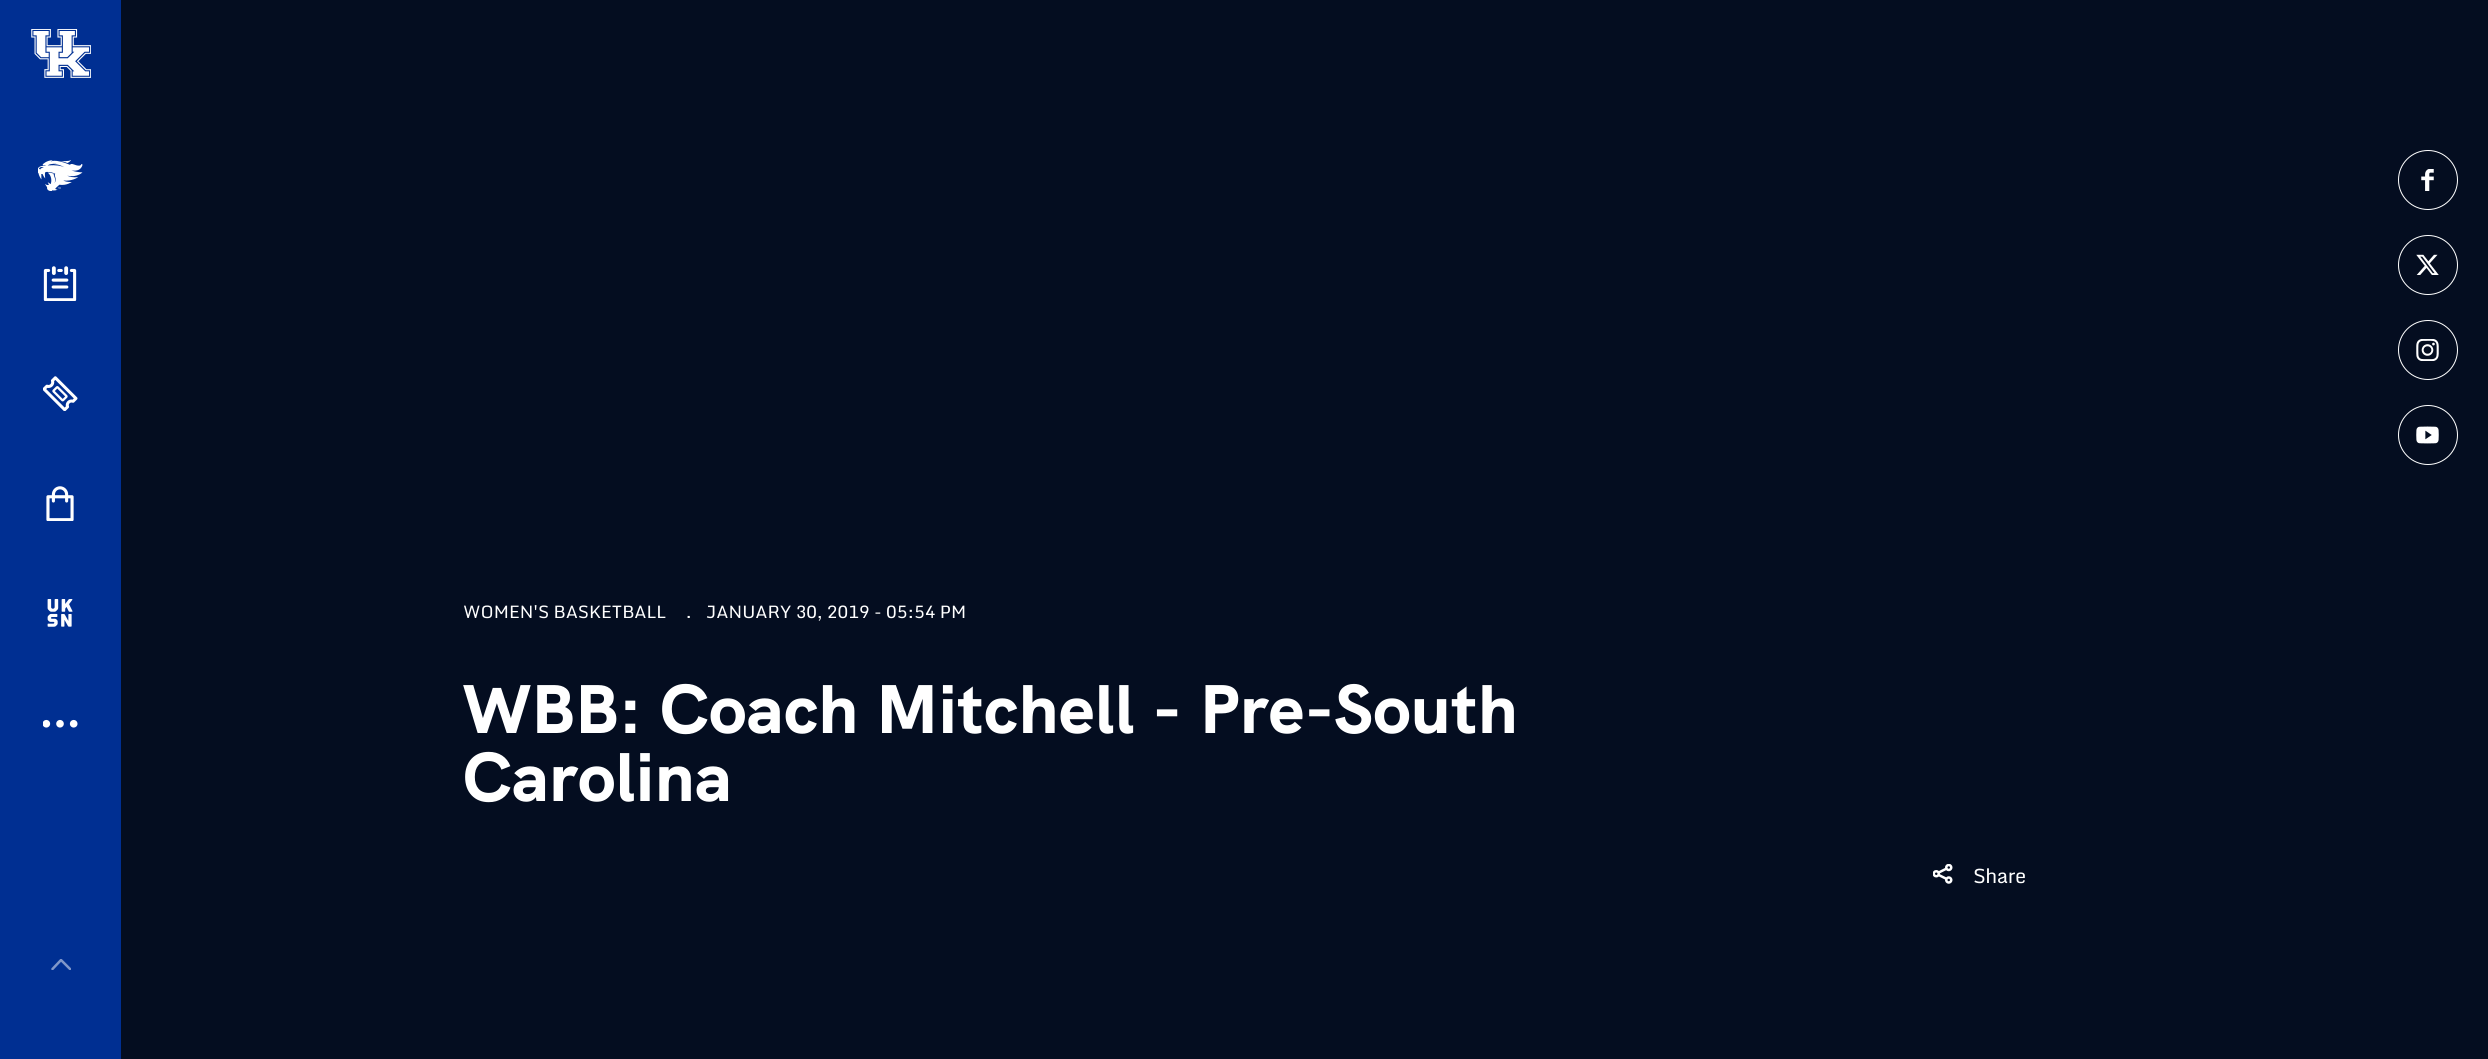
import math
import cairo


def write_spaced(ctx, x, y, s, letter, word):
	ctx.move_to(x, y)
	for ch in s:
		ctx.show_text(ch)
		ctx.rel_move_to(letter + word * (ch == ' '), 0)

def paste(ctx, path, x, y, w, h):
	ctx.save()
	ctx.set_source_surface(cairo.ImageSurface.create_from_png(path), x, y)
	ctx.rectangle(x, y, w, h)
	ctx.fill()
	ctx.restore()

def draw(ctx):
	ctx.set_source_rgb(0.016, 0.051, 0.125)
	ctx.paint()
	ctx.set_source_rgb(0, 0.184, 0.573)
	ctx.rectangle(0, 0, 121, 1059)
	ctx.fill()
	paste(ctx, 'media/1.png', 31, 29, 60, 49)
	paste(ctx, 'media/2.png', 38, 160, 45, 31)
	paste(ctx, 'media/3.png', 43, 266, 34, 35)
	paste(ctx, 'media/4.png', 43, 376, 35, 35)
	paste(ctx, 'media/5.png', 46, 486, 28, 35)
	paste(ctx, 'media/6.png', 47, 599, 26, 28)
	paste(ctx, 'media/7.png', 43, 719, 35, 9)
	ctx.save()
	ctx.rectangle(51, 959, 20, 11)
	ctx.clip()
	ctx.new_path()
	ctx.move_to(52.5, 969)
	ctx.line_to(61, 960)
	ctx.line_to(70, 969)
	ctx.set_source_rgb(0.502, 0.592, 0.788)
	ctx.set_line_width(2.5)
	ctx.set_line_cap(cairo.LINE_CAP_ROUND)
	ctx.set_line_join(cairo.LINE_JOIN_ROUND)
	ctx.stroke()
	ctx.restore()
	ctx.arc(2428, 180, 29.5, 0, 2 * math.pi)
	ctx.set_source_rgb(1, 1, 1)
	ctx.set_line_width(1)
	ctx.stroke()
	paste(ctx, 'media/8.png', 2421, 169, 13, 22)
	ctx.arc(2428, 265, 29.5, 0, 2 * math.pi)
	ctx.stroke()
	paste(ctx, 'media/9.png', 2416, 254, 23, 21)
	ctx.arc(2428, 350, 29.5, 0, 2 * math.pi)
	ctx.stroke()
	paste(ctx, 'media/10.png', 2416, 339, 23, 22)
	ctx.arc(2428, 435, 29.5, 0, 2 * math.pi)
	ctx.stroke()
	paste(ctx, 'media/11.png', 2416, 426, 23, 18)
	ctx.select_font_face('Monda')
	ctx.set_font_size(17.5)
	for x, y, s in [
		(463, 618, 'WOMEN\'S BASKETBALL'),
		(686, 618, '.'),
		(706, 618, 'JANUARY 30, 2019 - 05:54 PM'),
	]:
		ctx.move_to(x, y)
		ctx.show_text(s)
	ctx.select_font_face('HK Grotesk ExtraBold')
	ctx.set_font_size(68.75)
	write_spaced(ctx, 463, 733, 'WBB: Coach Mitchell - Pre-South', 0.9, 0)
	write_spaced(ctx, 463, 801, 'Carolina', 0.9, 0)
	paste(ctx, 'media/12.png', 1933, 864, 20, 20)
	ctx.select_font_face('Monda')
	ctx.set_font_size(20)
	write_spaced(ctx, 1973, 883, 'Share', -0.5, 0)


surface = cairo.ImageSurface(cairo.FORMAT_RGB24, 2488, 1059)
ctx = cairo.Context(surface)
options = cairo.FontOptions()
options.set_hint_metrics(cairo.HINT_METRICS_OFF)
options.set_hint_style(cairo.HINT_STYLE_NONE)
ctx.set_font_options(options)
ctx.set_miter_limit(4)
draw(ctx)
surface.write_to_png('image.png')
